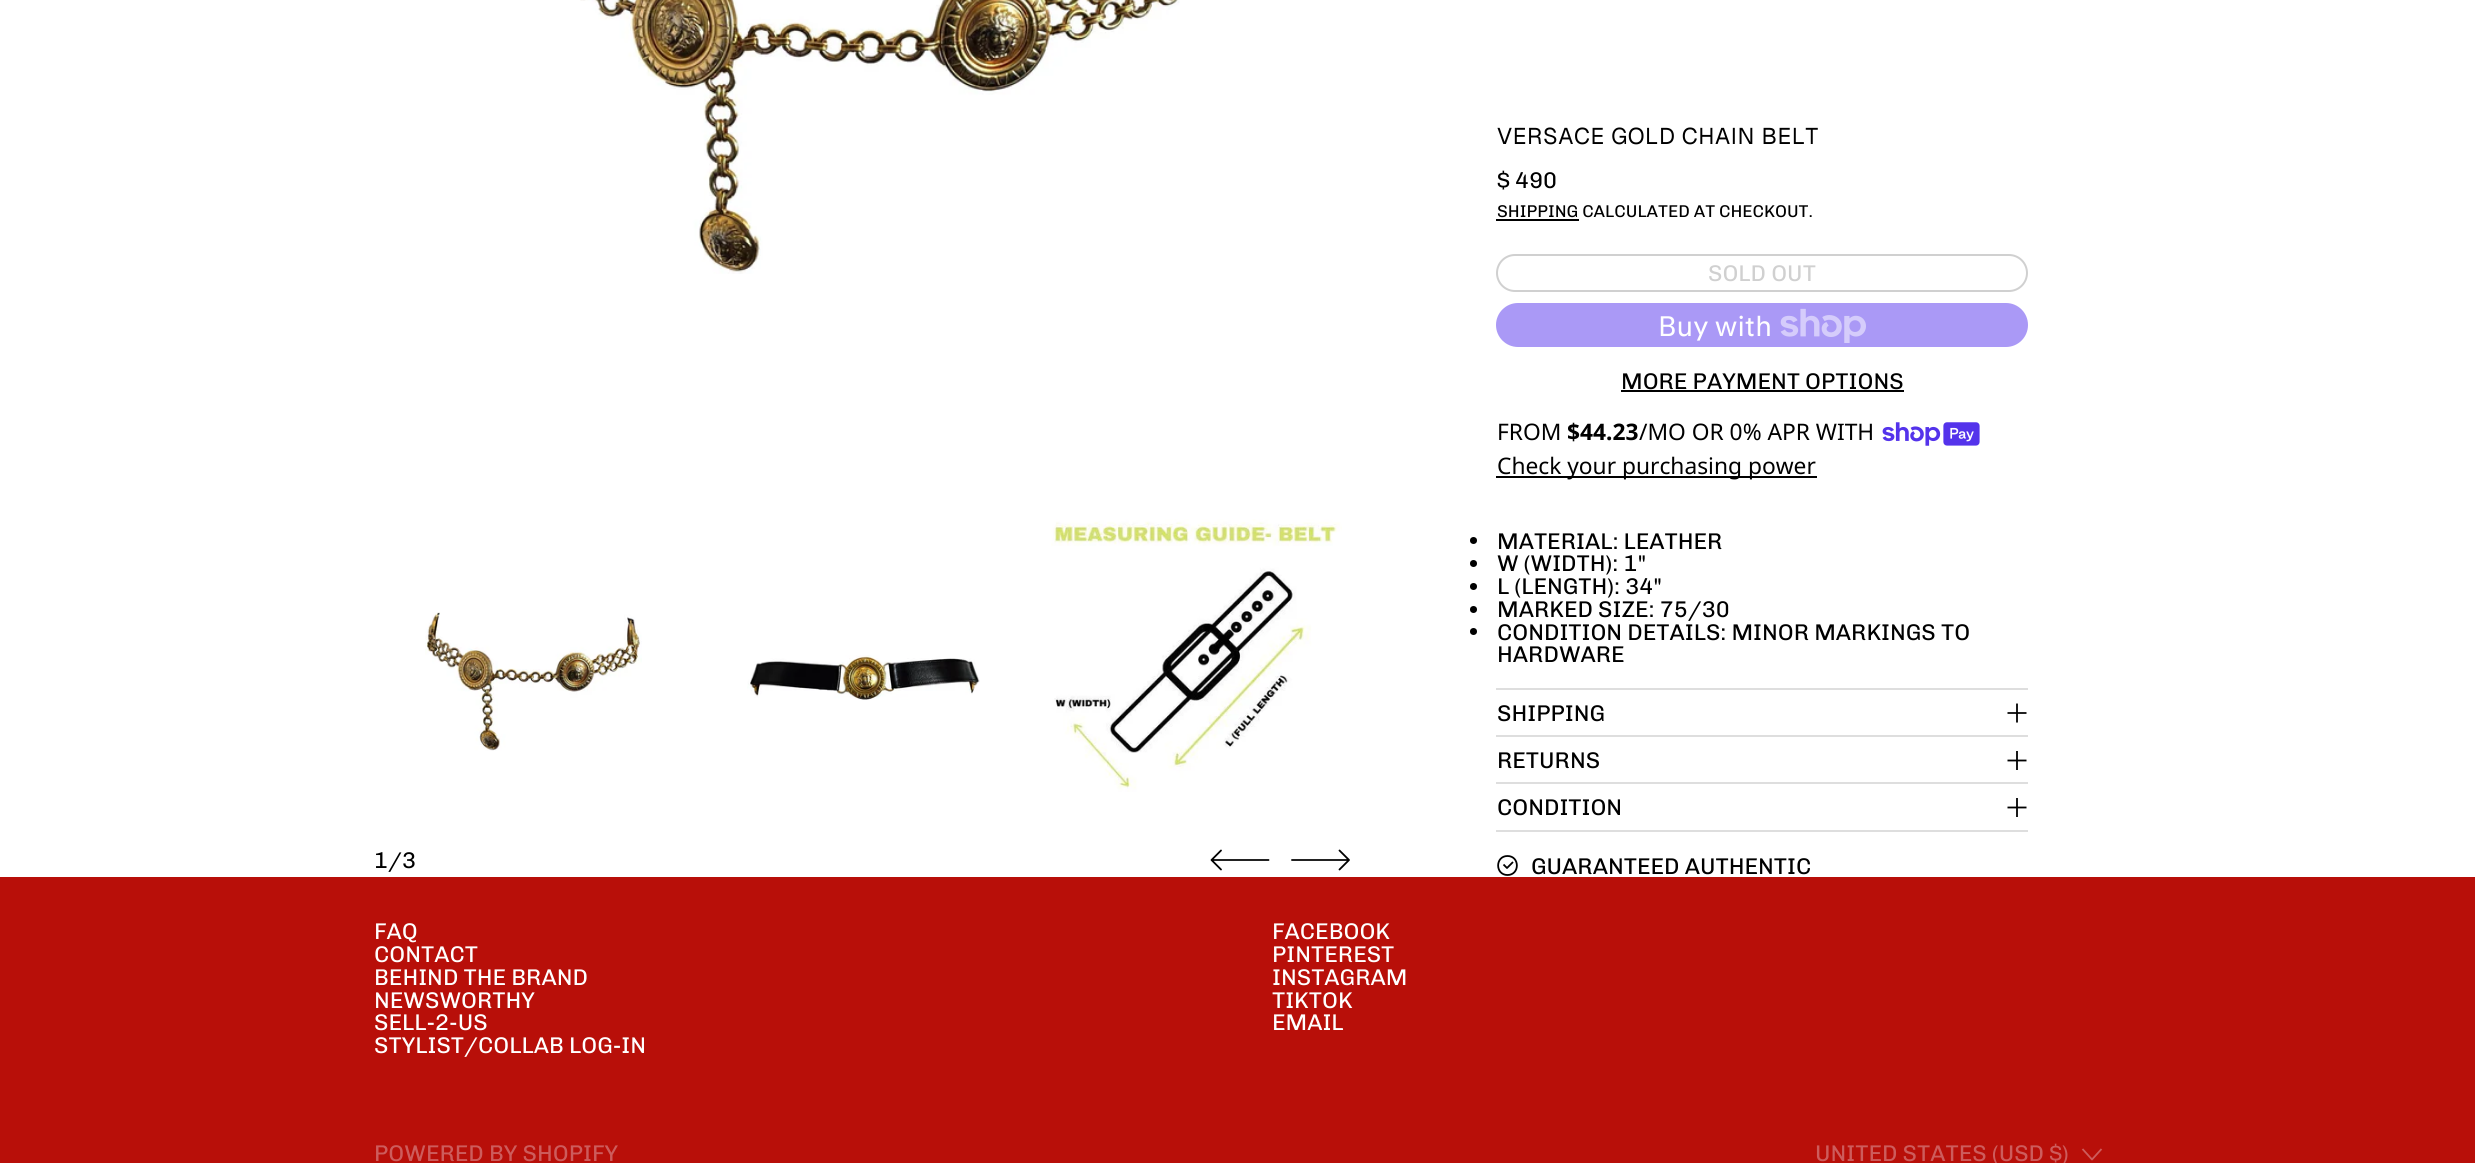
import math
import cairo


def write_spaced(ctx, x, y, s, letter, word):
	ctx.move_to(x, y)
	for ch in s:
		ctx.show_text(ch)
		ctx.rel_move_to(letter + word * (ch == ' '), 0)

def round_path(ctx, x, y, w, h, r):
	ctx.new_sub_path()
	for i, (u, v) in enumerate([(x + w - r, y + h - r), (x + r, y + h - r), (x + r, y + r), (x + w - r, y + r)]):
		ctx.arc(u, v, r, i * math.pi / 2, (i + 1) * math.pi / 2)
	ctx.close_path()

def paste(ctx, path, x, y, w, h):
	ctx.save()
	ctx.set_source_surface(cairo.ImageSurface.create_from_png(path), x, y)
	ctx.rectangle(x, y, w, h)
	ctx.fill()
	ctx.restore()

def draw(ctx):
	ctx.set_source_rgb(1, 1, 1)
	ctx.paint()
	paste(ctx, 'media/1.png', 580, 0, 600, 274)
	paste(ctx, 'media/2.png', 425, 612, 217, 139)
	paste(ctx, 'media/3.png', 747, 655, 233, 45)
	paste(ctx, 'media/4.png', 1051, 519, 291, 273)
	ctx.select_font_face('Chivo')
	ctx.set_font_size(22.75)
	ctx.set_source_rgb(0, 0, 0)
	ctx.move_to(374, 868)
	ctx.show_text('1/3')
	ctx.new_path()
	ctx.move_to(1268.5, 860)
	ctx.line_to(1211.5, 860)
	ctx.move_to(1221, 869.5)
	ctx.line_to(1211.5, 860)
	ctx.line_to(1221, 850.5)
	ctx.set_line_width(1.8)
	ctx.set_line_cap(cairo.LINE_CAP_ROUND)
	ctx.set_line_join(cairo.LINE_JOIN_ROUND)
	ctx.stroke()
	ctx.new_path()
	ctx.move_to(1292, 860)
	ctx.line_to(1349, 860)
	ctx.move_to(1339.5, 850.5)
	ctx.line_to(1349, 860)
	ctx.line_to(1339.5, 869.5)
	ctx.stroke()
	ctx.select_font_face('Geist')
	write_spaced(ctx, 1497, 144, 'VERSACE GOLD CHAIN BELT', 0.6, 0)
	ctx.select_font_face('Chivo')
	ctx.move_to(1497, 188)
	ctx.show_text('$ 490')
	ctx.set_font_size(17.1)
	ctx.move_to(1497, 217)
	ctx.show_text('SHIPPING CALCULATED AT CHECKOUT.')
	ctx.rectangle(1496, 219, 83, 2)
	ctx.fill()
	round_path(ctx, 1497, 255, 530, 36, 18)
	ctx.set_source_rgb(0.816, 0.816, 0.816)
	ctx.set_line_width(2)
	ctx.set_line_cap(cairo.LINE_CAP_BUTT)
	ctx.set_line_join(cairo.LINE_JOIN_MITER)
	ctx.stroke()
	ctx.set_font_size(22.75)
	ctx.move_to(1708, 281)
	ctx.show_text('SOLD OUT')
	ctx.set_source_rgb(0.667, 0.6, 0.961)
	round_path(ctx, 1496, 303, 532, 44, 22)
	ctx.fill()
	ctx.select_font_face('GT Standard')
	ctx.set_font_size(28)
	ctx.set_source_rgb(1, 1, 1)
	ctx.move_to(1658, 336)
	ctx.show_text('Buy with')
	paste(ctx, 'media/5.png', 1780, 308, 86, 35)
	ctx.select_font_face('Chivo')
	ctx.set_font_size(22.75)
	ctx.set_source_rgb(0, 0, 0)
	ctx.move_to(1621, 389)
	ctx.show_text('MORE PAYMENT OPTIONS')
	ctx.rectangle(1621, 390, 283, 2)
	ctx.fill()
	ctx.select_font_face('Noto Sans')
	ctx.move_to(1497, 440)
	ctx.show_text('FROM')
	ctx.select_font_face('Noto Sans', cairo.FONT_SLANT_NORMAL, cairo.FONT_WEIGHT_BOLD)
	ctx.move_to(1567, 440)
	ctx.show_text('$44.23')
	ctx.select_font_face('Noto Sans')
	ctx.move_to(1639, 440)
	ctx.show_text('/MO OR 0% APR WITH')
	paste(ctx, 'media/6.png', 1882, 422, 98, 24)
	ctx.rectangle(1496, 476, 321, 2)
	ctx.fill()
	ctx.move_to(1497, 474)
	ctx.show_text('Check your purchasing power')
	ctx.new_path()
	ctx.arc(1473.5, 540.5, 3.5, 0, 2 * math.pi)
	ctx.fill()
	ctx.select_font_face('Chivo')
	ctx.move_to(1497, 549)
	ctx.show_text('MATERIAL: LEATHER')
	ctx.new_path()
	ctx.arc(1473.5, 563.5, 3.5, 0, 2 * math.pi)
	ctx.fill()
	ctx.move_to(1497, 571)
	ctx.show_text('W (WIDTH): 1"')
	ctx.new_path()
	ctx.arc(1473.5, 586.5, 3.5, 0, 2 * math.pi)
	ctx.fill()
	ctx.move_to(1497, 594)
	ctx.show_text('L (LENGTH): 34"')
	ctx.new_path()
	ctx.arc(1473.5, 609.5, 3.5, 0, 2 * math.pi)
	ctx.fill()
	ctx.move_to(1497, 617)
	ctx.show_text('MARKED SIZE: 75/30')
	ctx.new_path()
	ctx.arc(1473.5, 631.5, 3.5, 0, 2 * math.pi)
	ctx.fill()
	ctx.move_to(1497, 640)
	ctx.show_text('CONDITION DETAILS: MINOR MARKINGS TO')
	ctx.move_to(1497, 662)
	ctx.show_text('HARDWARE')
	ctx.set_source_rgb(0.871, 0.871, 0.871)
	ctx.rectangle(1496, 688, 532, 2)
	ctx.fill()
	ctx.set_source_rgb(0, 0, 0)
	ctx.move_to(1497, 721)
	ctx.show_text('SHIPPING')
	ctx.new_path()
	ctx.move_to(2007.5, 713)
	ctx.line_to(2026.5, 713)
	ctx.move_to(2017, 703.5)
	ctx.line_to(2017, 722.5)
	ctx.set_line_width(1.8)
	ctx.set_line_join(cairo.LINE_JOIN_ROUND)
	ctx.stroke()
	ctx.set_source_rgb(0.871, 0.871, 0.871)
	ctx.rectangle(1496, 735, 532, 2)
	ctx.fill()
	ctx.set_source_rgb(0, 0, 0)
	ctx.move_to(1497, 768)
	ctx.show_text('RETURNS')
	ctx.new_path()
	ctx.move_to(2007.5, 760.5)
	ctx.line_to(2026.5, 760.5)
	ctx.move_to(2017, 751)
	ctx.line_to(2017, 770)
	ctx.stroke()
	ctx.set_source_rgb(0.871, 0.871, 0.871)
	ctx.rectangle(1496, 782, 532, 2)
	ctx.fill()
	ctx.rectangle(1496, 830, 532, 2)
	ctx.fill()
	ctx.set_source_rgb(0, 0, 0)
	ctx.move_to(1497, 815)
	ctx.show_text('CONDITION')
	ctx.new_path()
	ctx.move_to(2007.5, 807.5)
	ctx.line_to(2026.5, 807.5)
	ctx.move_to(2017, 798)
	ctx.line_to(2017, 817)
	ctx.stroke()
	ctx.new_path()
	ctx.move_to(1507.5, 875)
	ctx.curve_to(1520, 875, 1520, 856, 1507.5, 856)
	ctx.curve_to(1495, 856, 1495, 875, 1507.5, 875)
	ctx.close_path()
	ctx.move_to(1503.5, 864.5)
	ctx.line_to(1507, 868)
	ctx.line_to(1513, 862)
	ctx.stroke()
	ctx.move_to(1531, 874)
	ctx.show_text('GUARANTEED AUTHENTIC')
	ctx.set_source_rgb(0.722, 0.059, 0.039)
	ctx.rectangle(0, 877, 2475, 286)
	ctx.fill()
	ctx.set_source_rgb(1, 1, 1)
	for x, y, s in [
		(374, 939, 'FAQ'),
		(374, 962, 'CONTACT'),
		(374, 985, 'BEHIND THE BRAND'),
		(374, 1008, 'NEWSWORTHY'),
		(374, 1030, 'SELL-2-US'),
		(374, 1053, 'STYLIST/COLLAB LOG-IN'),
		(1272, 939, 'FACEBOOK'),
		(1272, 962, 'PINTEREST'),
		(1272, 985, 'INSTAGRAM'),
		(1272, 1008, 'TIKTOK'),
		(1272, 1030, 'EMAIL'),
	]:
		ctx.move_to(x, y)
		ctx.show_text(s)
	ctx.set_source_rgb(0.804, 0.361, 0.361)
	ctx.move_to(374, 1161)
	ctx.show_text('POWERED BY SHOPIFY')
	ctx.move_to(1815, 1161)
	ctx.show_text('UNITED STATES (USD $)')
	ctx.new_path()
	ctx.move_to(2082.5, 1149)
	ctx.line_to(2092, 1159.5)
	ctx.line_to(2101.5, 1149)
	ctx.stroke()


surface = cairo.ImageSurface(cairo.FORMAT_RGB24, 2475, 1163)
ctx = cairo.Context(surface)
options = cairo.FontOptions()
options.set_hint_metrics(cairo.HINT_METRICS_OFF)
options.set_hint_style(cairo.HINT_STYLE_NONE)
ctx.set_font_options(options)
ctx.set_miter_limit(4)
draw(ctx)
surface.write_to_png('image.png')
